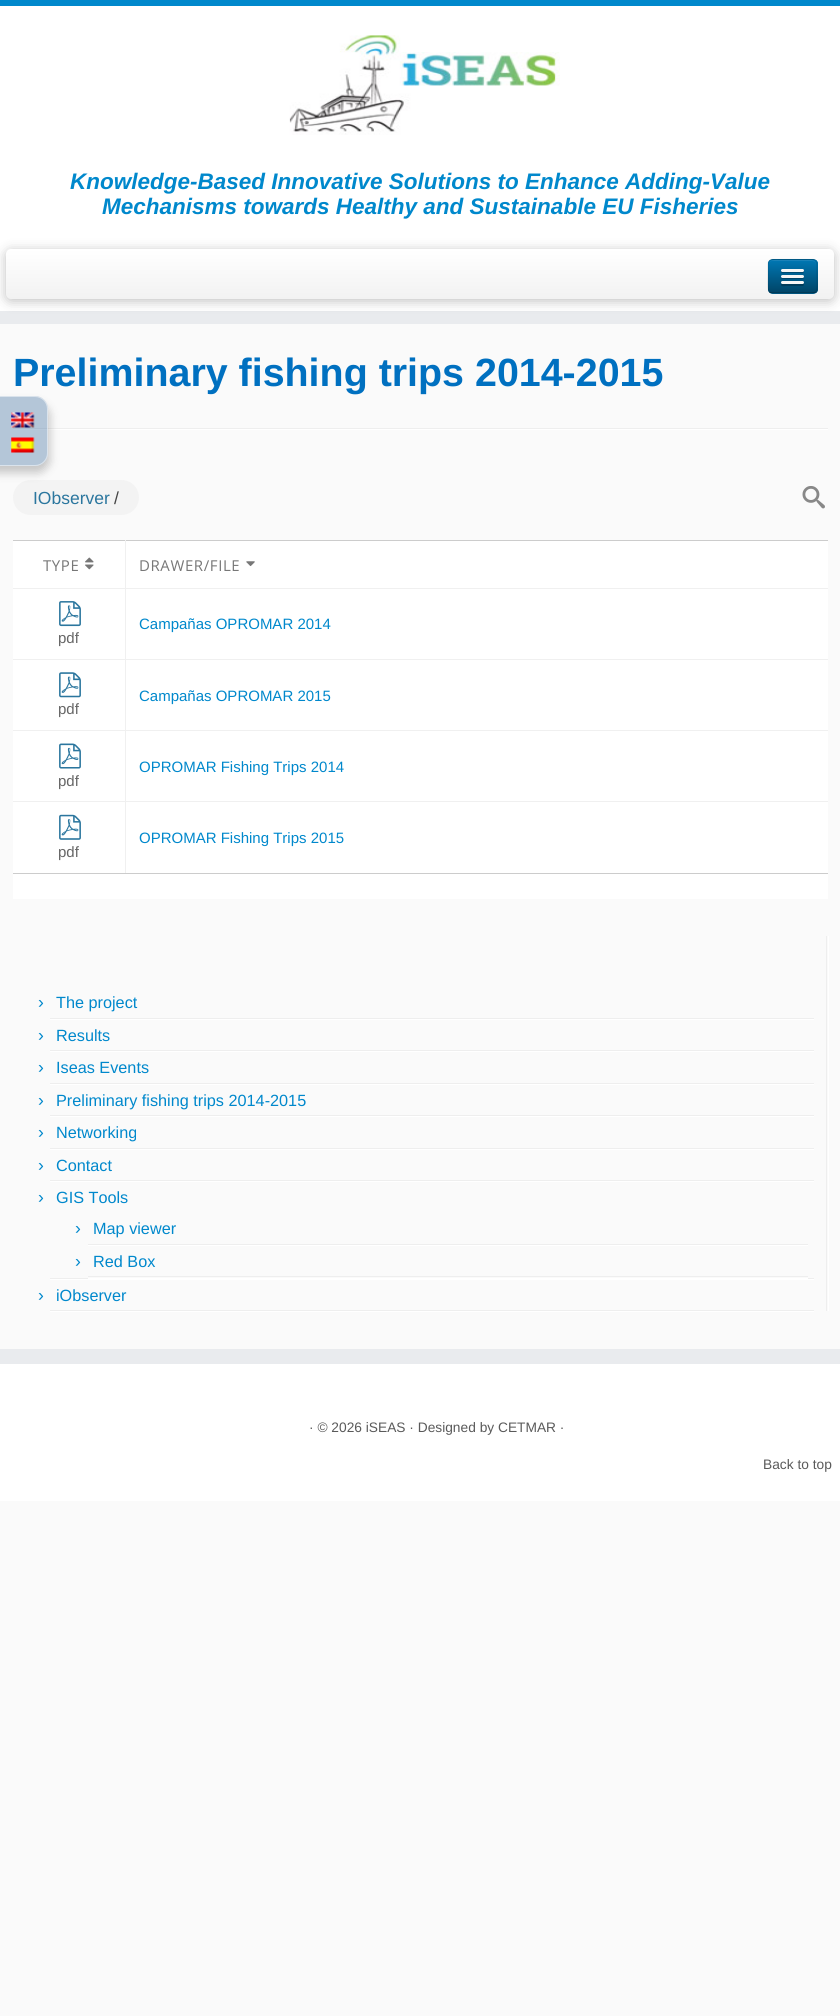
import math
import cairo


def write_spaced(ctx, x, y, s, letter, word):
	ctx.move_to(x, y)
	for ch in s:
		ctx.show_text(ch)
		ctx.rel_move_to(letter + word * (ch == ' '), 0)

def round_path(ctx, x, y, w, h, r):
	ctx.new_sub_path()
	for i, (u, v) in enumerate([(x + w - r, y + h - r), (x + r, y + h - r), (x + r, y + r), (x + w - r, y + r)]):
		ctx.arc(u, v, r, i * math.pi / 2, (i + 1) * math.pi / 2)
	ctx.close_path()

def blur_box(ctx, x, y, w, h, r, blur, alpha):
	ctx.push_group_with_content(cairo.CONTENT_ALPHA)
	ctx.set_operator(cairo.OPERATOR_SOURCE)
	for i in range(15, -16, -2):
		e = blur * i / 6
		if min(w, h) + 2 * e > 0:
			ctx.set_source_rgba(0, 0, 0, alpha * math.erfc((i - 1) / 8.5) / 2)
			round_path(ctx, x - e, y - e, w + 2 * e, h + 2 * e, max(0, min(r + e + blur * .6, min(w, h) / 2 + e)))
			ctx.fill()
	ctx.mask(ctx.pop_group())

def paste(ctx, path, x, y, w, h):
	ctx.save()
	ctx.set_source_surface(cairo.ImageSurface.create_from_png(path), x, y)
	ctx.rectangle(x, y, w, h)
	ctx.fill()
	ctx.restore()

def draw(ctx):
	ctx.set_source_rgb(0.98, 0.98, 0.98)
	ctx.paint()
	ctx.set_source_rgb(1, 1, 1)
	ctx.rectangle(0, 6, 840, 305)
	ctx.fill()
	ctx.set_source_rgb(0, 0.533, 0.8)
	ctx.rectangle(0, 0, 840, 6)
	ctx.fill()
	ctx.set_source_rgb(0.914, 0.918, 0.933)
	ctx.rectangle(0, 311, 840, 13)
	ctx.fill()
	paste(ctx, 'media/1.png', 289, 35, 271, 100)
	ctx.select_font_face('Liberation Sans', cairo.FONT_SLANT_ITALIC, cairo.FONT_WEIGHT_BOLD)
	ctx.set_font_size(22.5)
	ctx.set_source_rgb(0, 0.533, 0.8)
	ctx.move_to(70, 189)
	ctx.show_text('Knowledge-Based Innovative Solutions to Enhance Adding-Value')
	ctx.move_to(102, 214)
	ctx.show_text('Mechanisms towards Healthy and Sustainable EU Fisheries')
	ctx.set_source_rgb(0, 0, 0)
	blur_box(ctx, 6, 251, 828, 50, 5, 6, 0.25)
	gradient = cairo.LinearGradient(420, 249, 420, 299)
	gradient.add_color_stop_rgba(0, 1, 1, 1, 1)
	gradient.add_color_stop_rgba(1, 0.949, 0.949, 0.949, 1)
	ctx.set_source(gradient)
	round_path(ctx, 6, 249, 828, 50, 5)
	ctx.fill()
	ctx.set_source_rgb(0, 0.388, 0.58)
	round_path(ctx, 768, 259, 50, 35, 5)
	ctx.fill()
	ctx.save()
	round_path(ctx, 768, 259, 50, 35, 5)
	ctx.clip()
	gradient = cairo.LinearGradient(793, 260, 793, 293)
	gradient.add_color_stop_rgba(0, 0, 0.467, 0.702, 1)
	gradient.add_color_stop_rgba(1, 0, 0.267, 0.4, 1)
	ctx.set_source(gradient)
	ctx.rectangle(768, 260, 50, 33)
	ctx.fill()
	ctx.restore()
	ctx.set_source_rgb(0.102, 0.518, 0.729)
	ctx.new_path()
	ctx.move_to(772, 261)
	ctx.line_to(812, 261)
	ctx.curve_to(815, 261, 816, 263, 816, 265)
	ctx.curve_to(816, 259, 810, 260, 806, 260)
	ctx.line_to(780, 260)
	ctx.curve_to(775, 260, 769, 259, 769, 265)
	ctx.curve_to(769, 263, 770, 261, 772, 261)
	ctx.close_path()
	ctx.fill()
	ctx.new_path()
	ctx.move_to(815.5, 292)
	ctx.curve_to(815, 292.5, 813.5, 293, 812.5, 293)
	ctx.line_to(772.5, 293)
	ctx.curve_to(771.5, 293, 770, 292.5, 769.5, 292)
	ctx.set_source_rgba(0, 0, 0, 0.25)
	ctx.set_line_width(1.2)
	ctx.stroke()
	ctx.new_path()
	ctx.move_to(769.5, 292)
	ctx.curve_to(767, 289.5, 768, 279.5, 768, 276)
	ctx.line_to(768, 268)
	ctx.curve_to(768, 265, 767.5, 260.5, 771.5, 259.5)
	ctx.line_to(813.5, 259.5)
	ctx.curve_to(817.5, 260.5, 817, 265, 817, 268)
	ctx.line_to(817, 276)
	ctx.curve_to(817, 279.5, 818, 289.5, 815.5, 292)
	ctx.set_source_rgba(0, 0, 0, 0.1)
	ctx.stroke()
	ctx.set_source_rgb(0, 0.294, 0.443)
	ctx.new_path()
	ctx.move_to(781.5, 270.5)
	ctx.line_to(781, 272)
	ctx.curve_to(781.5, 274, 785, 273, 786, 273)
	ctx.line_to(799, 273)
	ctx.curve_to(800, 273, 803.5, 274, 804, 272)
	ctx.line_to(803.5, 270.5)
	ctx.curve_to(803.5, 271, 803, 271, 802.5, 271)
	ctx.line_to(782.5, 271)
	ctx.curve_to(782, 271, 781.5, 271, 781.5, 270.5)
	ctx.close_path()
	ctx.fill()
	ctx.set_source_rgb(0.961, 0.961, 0.961)
	round_path(ctx, 781, 269, 23, 3, 1.5)
	ctx.fill()
	ctx.set_source_rgb(0, 0.267, 0.4)
	ctx.new_path()
	ctx.move_to(781.5, 276.5)
	ctx.curve_to(779, 279.5, 785.5, 279, 786, 279)
	ctx.line_to(799, 279)
	ctx.curve_to(799.5, 279, 806, 279.5, 803.5, 276.5)
	ctx.curve_to(803.5, 277, 803, 277.5, 802.5, 277.5)
	ctx.line_to(782.5, 277.5)
	ctx.curve_to(782, 277.5, 781.5, 277, 781.5, 276.5)
	ctx.close_path()
	ctx.fill()
	ctx.set_source_rgb(0.961, 0.961, 0.961)
	round_path(ctx, 781, 275, 23, 3, 1.5)
	ctx.fill()
	ctx.set_source_rgb(0, 0.235, 0.357)
	ctx.new_path()
	ctx.move_to(781.5, 283.5)
	ctx.curve_to(781, 283.5, 781, 284.5, 781, 285)
	ctx.curve_to(781.5, 287, 785, 286, 786, 286)
	ctx.line_to(803, 286)
	ctx.curve_to(804, 285.5, 804.5, 284, 803.5, 283.5)
	ctx.curve_to(802.5, 284, 782.5, 284, 781.5, 283.5)
	ctx.close_path()
	ctx.fill()
	ctx.set_source_rgb(0.961, 0.961, 0.961)
	round_path(ctx, 781, 281, 23, 3, 1.5)
	ctx.fill()
	ctx.set_source_rgb(0.933, 0.933, 0.933)
	ctx.rectangle(13, 428, 815, 1)
	ctx.fill()
	ctx.set_source_rgb(1, 1, 1)
	ctx.rectangle(13, 429, 815, 1)
	ctx.fill()
	ctx.set_source_rgb(0.953, 0.953, 0.953)
	round_path(ctx, 13, 480, 126, 35, 17.5)
	ctx.fill()
	ctx.save()
	ctx.set_fill_rule(cairo.FILL_RULE_EVEN_ODD)
	ctx.new_path()
	ctx.move_to(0, 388)
	ctx.line_to(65, 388)
	ctx.line_to(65, 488)
	ctx.line_to(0, 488)
	ctx.close_path()
	ctx.move_to(-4, 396)
	ctx.line_to(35, 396)
	ctx.curve_to(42, 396, 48, 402, 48, 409)
	ctx.line_to(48, 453)
	ctx.curve_to(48, 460, 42, 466, 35, 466)
	ctx.line_to(-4, 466)
	ctx.curve_to(-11, 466, -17, 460, -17, 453)
	ctx.line_to(-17, 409)
	ctx.curve_to(-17, 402, -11, 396, -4, 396)
	ctx.close_path()
	ctx.clip()
	ctx.set_source_rgb(0, 0, 0)
	blur_box(ctx, -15, 403, 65, 70, 13, 4.5, 0.21)
	ctx.restore()
	ctx.set_source_rgba(0.2, 0.4, 0.6, 0.35)
	round_path(ctx, -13, 396, 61, 70, 13)
	ctx.fill()
	round_path(ctx, -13.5, 396.5, 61, 69, 12.5)
	ctx.set_source_rgba(1, 1, 1, 0.5)
	ctx.set_line_width(1)
	ctx.stroke()
	paste(ctx, 'media/2.png', 11, 412, 24, 16)
	paste(ctx, 'media/3.png', 11, 437, 24, 16)
	ctx.select_font_face('Liberation Sans', cairo.FONT_SLANT_NORMAL, cairo.FONT_WEIGHT_BOLD)
	ctx.set_font_size(39.4)
	ctx.set_source_rgb(0, 0.439, 0.753)
	ctx.move_to(13, 386)
	ctx.show_text('Preliminary fishing trips 2014-2015')
	ctx.select_font_face('Liberation Sans')
	ctx.set_font_size(17.5)
	ctx.set_source_rgb(0.169, 0.463, 0.62)
	ctx.move_to(33, 504)
	ctx.show_text('IObserver')
	ctx.set_source_rgb(0.267, 0.267, 0.267)
	ctx.move_to(114, 504)
	ctx.show_text('/')
	paste(ctx, 'media/4.png', 802, 486, 23, 23)
	ctx.set_source_rgb(1, 1, 1)
	ctx.rectangle(13, 541, 815, 358)
	ctx.fill()
	ctx.set_source_rgb(0.8, 0.8, 0.8)
	ctx.rectangle(13, 540, 815, 1)
	ctx.fill()
	ctx.select_font_face('Open Sans')
	ctx.set_font_size(15)
	ctx.set_source_rgb(0.467, 0.467, 0.467)
	write_spaced(ctx, 43, 571, 'TYPE', 0.6, 0)
	paste(ctx, 'media/5.png', 85, 557, 9, 13)
	ctx.set_source_rgb(0.941, 0.941, 0.941)
	ctx.rectangle(125, 540, 1, 48)
	ctx.fill()
	ctx.set_source_rgb(0.467, 0.467, 0.467)
	write_spaced(ctx, 139, 571, 'DRAWER/FILE', 0.6, 0)
	paste(ctx, 'media/6.png', 246, 561, 9, 6)
	ctx.set_source_rgb(0.941, 0.941, 0.941)
	ctx.rectangle(13, 588, 815, 1)
	ctx.fill()
	ctx.rectangle(125, 588, 1, 71)
	ctx.fill()
	ctx.select_font_face('Liberation Sans')
	ctx.set_source_rgb(0, 0.533, 0.8)
	ctx.move_to(139, 629)
	ctx.show_text('Campañas OPROMAR 2014')
	paste(ctx, 'media/7.png', 59, 601, 22, 26)
	ctx.set_source_rgb(0.4, 0.4, 0.4)
	ctx.move_to(58, 643)
	ctx.show_text('pdf')
	ctx.set_source_rgb(0.941, 0.941, 0.941)
	ctx.rectangle(13, 659, 815, 1)
	ctx.fill()
	ctx.rectangle(125, 659, 1, 71)
	ctx.fill()
	ctx.set_source_rgb(0, 0.533, 0.8)
	ctx.move_to(139, 701)
	ctx.show_text('Campañas OPROMAR 2015')
	paste(ctx, 'media/8.png', 59, 672, 22, 26)
	ctx.set_source_rgb(0.4, 0.4, 0.4)
	ctx.move_to(58, 714)
	ctx.show_text('pdf')
	ctx.set_source_rgb(0.941, 0.941, 0.941)
	ctx.rectangle(13, 730, 815, 1)
	ctx.fill()
	ctx.rectangle(125, 730, 1, 71)
	ctx.fill()
	ctx.set_source_rgb(0, 0.533, 0.8)
	ctx.move_to(139, 772)
	ctx.show_text('OPROMAR Fishing Trips 2014')
	paste(ctx, 'media/9.png', 59, 743, 22, 26)
	ctx.set_source_rgb(0.4, 0.4, 0.4)
	ctx.move_to(58, 786)
	ctx.show_text('pdf')
	ctx.set_source_rgb(0.941, 0.941, 0.941)
	ctx.rectangle(13, 801, 815, 1)
	ctx.fill()
	ctx.rectangle(125, 801, 1, 72)
	ctx.fill()
	ctx.set_source_rgb(0, 0.533, 0.8)
	ctx.move_to(139, 843)
	ctx.show_text('OPROMAR Fishing Trips 2015')
	paste(ctx, 'media/10.png', 59, 814, 22, 26)
	ctx.set_source_rgb(0.4, 0.4, 0.4)
	ctx.move_to(58, 857)
	ctx.show_text('pdf')
	ctx.set_source_rgb(0.8, 0.8, 0.8)
	ctx.rectangle(13, 873, 815, 1)
	ctx.fill()
	ctx.set_source_rgb(0.933, 0.933, 0.933)
	ctx.rectangle(826, 936, 1, 375)
	ctx.rectangle(50, 1018, 764, 1)
	ctx.fill()
	ctx.set_font_size(17.5)
	ctx.set_source_rgb(0, 0.533, 0.8)
	ctx.move_to(38, 1008)
	ctx.show_text('›')
	ctx.set_font_size(16.25)
	ctx.move_to(56, 1008)
	ctx.show_text('The project')
	ctx.set_source_rgb(1, 1, 1)
	ctx.rectangle(50, 1019, 764, 1)
	ctx.fill()
	ctx.set_source_rgb(0.933, 0.933, 0.933)
	ctx.rectangle(50, 1050, 764, 1)
	ctx.fill()
	ctx.set_font_size(17.5)
	ctx.set_source_rgb(0, 0.533, 0.8)
	ctx.move_to(38, 1041)
	ctx.show_text('›')
	ctx.set_font_size(16.25)
	ctx.move_to(56, 1041)
	ctx.show_text('Results')
	ctx.set_source_rgb(1, 1, 1)
	ctx.rectangle(50, 1051, 764, 1)
	ctx.fill()
	ctx.set_source_rgb(0.933, 0.933, 0.933)
	ctx.rectangle(50, 1083, 764, 1)
	ctx.fill()
	ctx.set_font_size(17.5)
	ctx.set_source_rgb(0, 0.533, 0.8)
	ctx.move_to(38, 1073)
	ctx.show_text('›')
	ctx.set_font_size(16.25)
	ctx.move_to(56, 1073)
	ctx.show_text('Iseas Events')
	ctx.set_source_rgb(1, 1, 1)
	ctx.rectangle(50, 1084, 764, 1)
	ctx.fill()
	ctx.set_source_rgb(0.933, 0.933, 0.933)
	ctx.rectangle(50, 1115, 764, 1)
	ctx.fill()
	ctx.set_font_size(17.5)
	ctx.set_source_rgb(0, 0.533, 0.8)
	ctx.move_to(38, 1106)
	ctx.show_text('›')
	ctx.set_font_size(16.25)
	ctx.move_to(56, 1106)
	ctx.show_text('Preliminary fishing trips 2014-2015')
	ctx.set_source_rgb(1, 1, 1)
	ctx.rectangle(50, 1116, 764, 1)
	ctx.fill()
	ctx.set_source_rgb(0.933, 0.933, 0.933)
	ctx.rectangle(50, 1148, 764, 1)
	ctx.fill()
	ctx.set_font_size(17.5)
	ctx.set_source_rgb(0, 0.533, 0.8)
	ctx.move_to(38, 1138)
	ctx.show_text('›')
	ctx.set_font_size(16.25)
	ctx.move_to(56, 1138)
	ctx.show_text('Networking')
	ctx.set_source_rgb(1, 1, 1)
	ctx.rectangle(50, 1149, 764, 1)
	ctx.fill()
	ctx.set_source_rgb(0.933, 0.933, 0.933)
	ctx.rectangle(50, 1180, 764, 1)
	ctx.fill()
	ctx.set_font_size(17.5)
	ctx.set_source_rgb(0, 0.533, 0.8)
	ctx.move_to(38, 1171)
	ctx.show_text('›')
	ctx.set_font_size(16.25)
	ctx.move_to(56, 1171)
	ctx.show_text('Contact')
	ctx.set_source_rgb(1, 1, 1)
	ctx.rectangle(50, 1181, 764, 1)
	ctx.fill()
	ctx.set_source_rgb(0.933, 0.933, 0.933)
	ctx.rectangle(50, 1278, 764, 1)
	ctx.fill()
	ctx.set_font_size(17.5)
	ctx.set_source_rgb(0, 0.533, 0.8)
	ctx.move_to(38, 1203)
	ctx.show_text('›')
	ctx.set_font_size(16.25)
	ctx.move_to(56, 1203)
	ctx.show_text('GIS Tools')
	ctx.set_source_rgb(0.933, 0.933, 0.933)
	ctx.rectangle(88, 1244, 720, 1)
	ctx.fill()
	ctx.set_font_size(17.5)
	ctx.set_source_rgb(0, 0.533, 0.8)
	ctx.move_to(75, 1234)
	ctx.show_text('›')
	ctx.set_font_size(16.25)
	ctx.move_to(93, 1234)
	ctx.show_text('Map viewer')
	ctx.set_source_rgb(1, 1, 1)
	ctx.rectangle(88, 1245, 720, 1)
	ctx.fill()
	ctx.set_source_rgb(0.933, 0.933, 0.933)
	ctx.rectangle(88, 1276, 720, 1)
	ctx.fill()
	ctx.set_font_size(17.5)
	ctx.set_source_rgb(0, 0.533, 0.8)
	ctx.move_to(75, 1267)
	ctx.show_text('›')
	ctx.set_font_size(16.25)
	ctx.move_to(93, 1267)
	ctx.show_text('Red Box')
	ctx.set_source_rgb(1, 1, 1)
	ctx.rectangle(88, 1278, 720, 1)
	ctx.rectangle(50, 1279, 764, 1)
	ctx.fill()
	ctx.set_source_rgb(0.933, 0.933, 0.933)
	ctx.rectangle(50, 1310, 764, 1)
	ctx.fill()
	ctx.set_font_size(17.5)
	ctx.set_source_rgb(0, 0.533, 0.8)
	ctx.move_to(38, 1301)
	ctx.show_text('›')
	ctx.set_font_size(16.25)
	ctx.move_to(56, 1301)
	ctx.show_text('iObserver')
	ctx.set_source_rgb(1, 1, 1)
	ctx.rectangle(50, 1311, 764, 1)
	ctx.rectangle(828, 936, 1, 375)
	ctx.fill()
	ctx.set_source_rgb(0.914, 0.918, 0.933)
	ctx.rectangle(0, 1349, 840, 15)
	ctx.fill()
	ctx.set_source_rgb(1, 1, 1)
	ctx.rectangle(0, 1364, 840, 137)
	ctx.fill()
	ctx.set_font_size(13.75)
	ctx.set_source_rgb(0.353, 0.353, 0.353)
	ctx.move_to(309, 1432)
	ctx.show_text('· © 2026 iSEAS · Designed by CETMAR ·')
	ctx.move_to(763, 1469)
	ctx.show_text('Back to top')


surface = cairo.ImageSurface(cairo.FORMAT_RGB24, 840, 2016)
ctx = cairo.Context(surface)
options = cairo.FontOptions()
options.set_hint_metrics(cairo.HINT_METRICS_OFF)
options.set_hint_style(cairo.HINT_STYLE_NONE)
ctx.set_font_options(options)
ctx.set_miter_limit(4)
draw(ctx)
surface.write_to_png('image.png')
